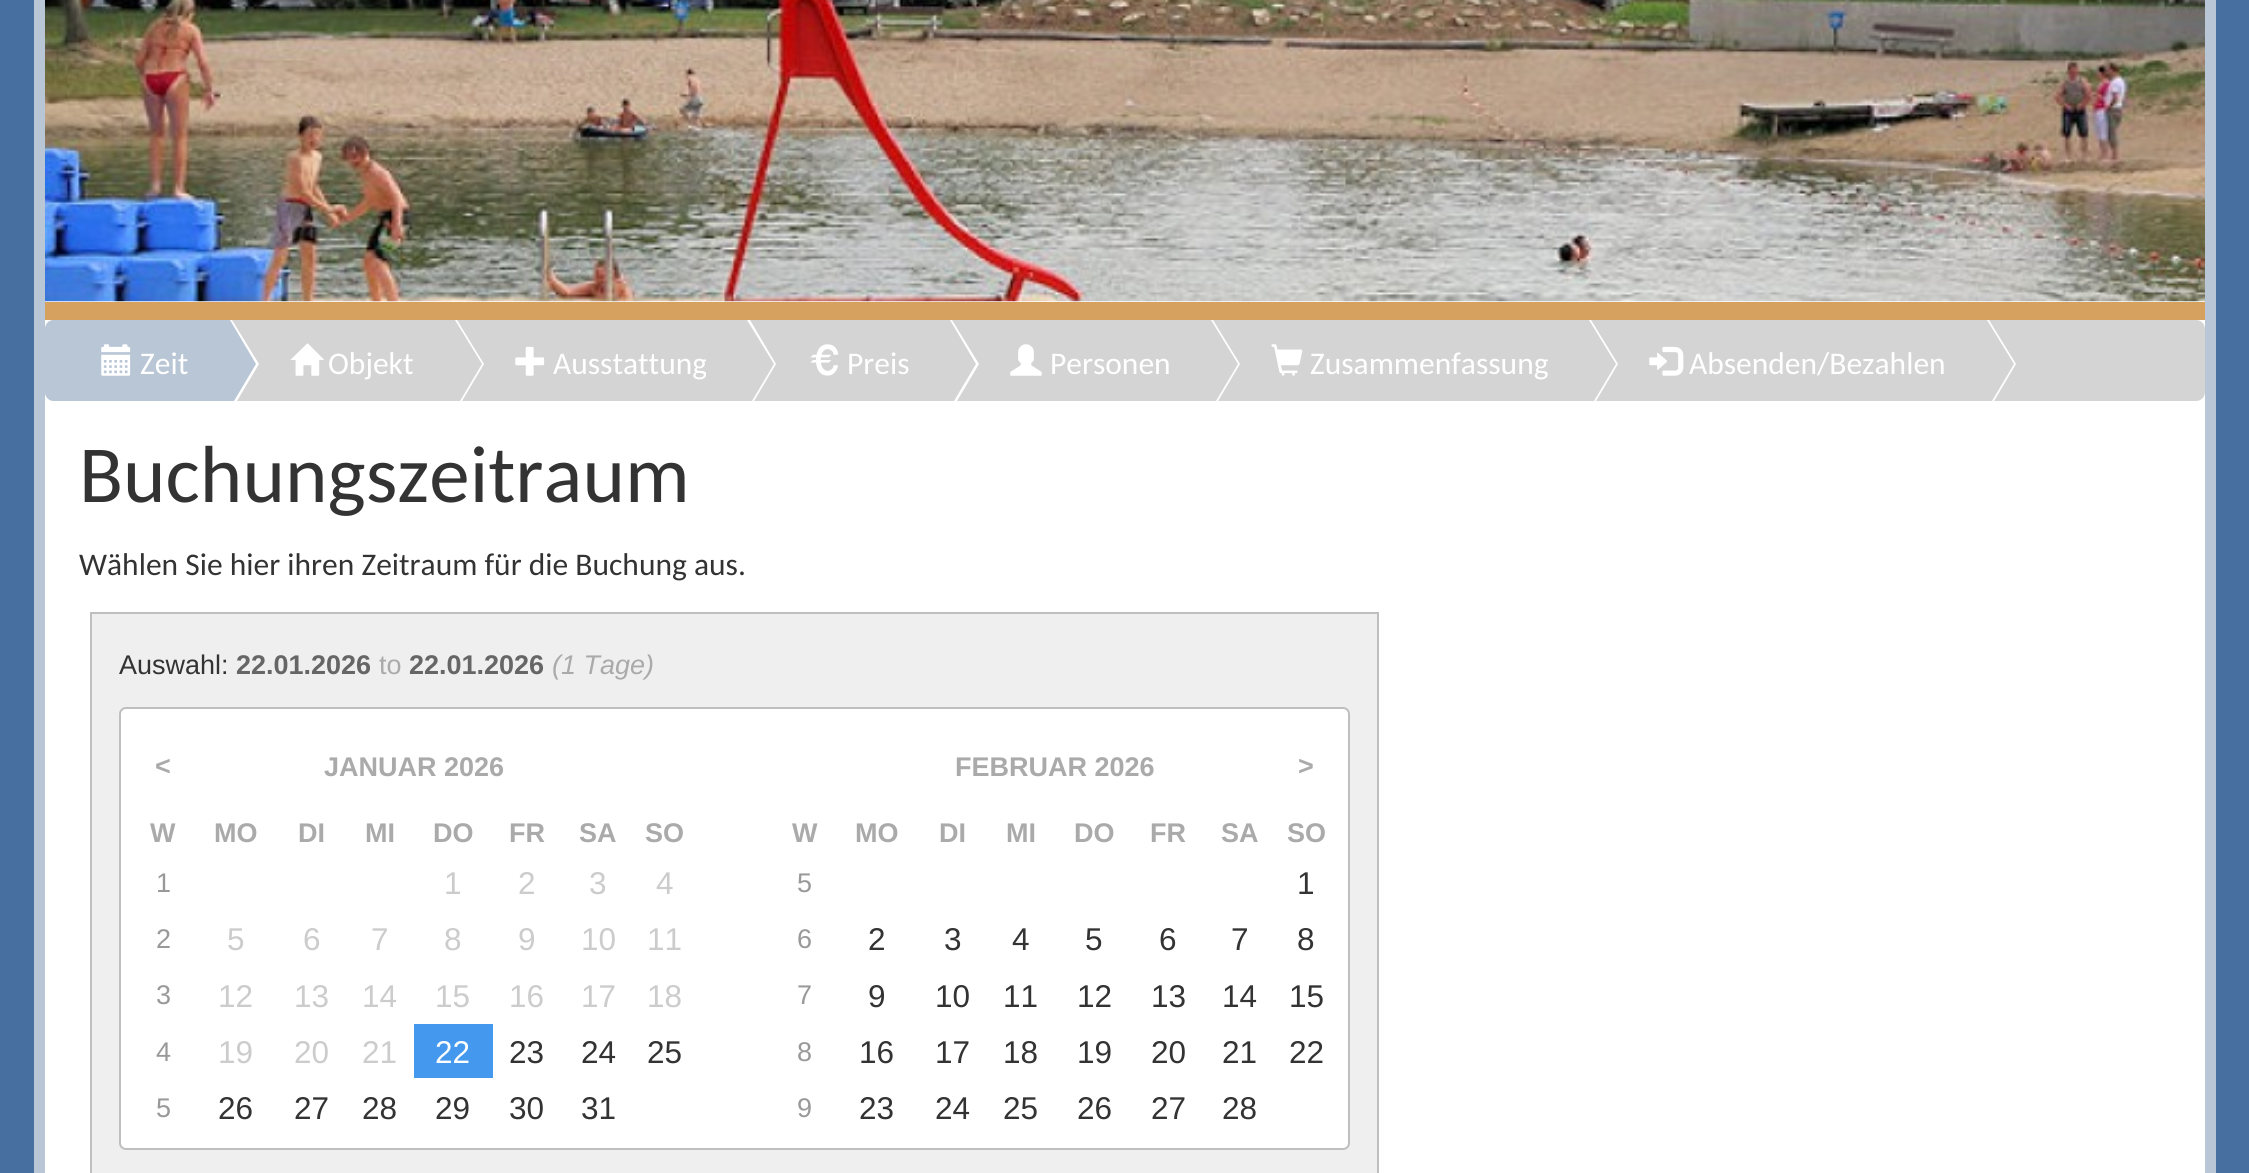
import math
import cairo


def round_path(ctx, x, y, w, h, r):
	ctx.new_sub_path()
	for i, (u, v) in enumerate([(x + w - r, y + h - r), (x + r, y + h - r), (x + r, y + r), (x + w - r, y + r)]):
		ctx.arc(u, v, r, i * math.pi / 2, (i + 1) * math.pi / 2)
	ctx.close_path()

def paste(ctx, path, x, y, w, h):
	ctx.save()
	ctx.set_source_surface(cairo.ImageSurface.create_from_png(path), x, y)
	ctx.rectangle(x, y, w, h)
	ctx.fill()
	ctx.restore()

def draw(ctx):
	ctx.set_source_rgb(0.278, 0.435, 0.627)
	ctx.paint()
	ctx.set_source_rgb(1, 1, 1)
	ctx.rectangle(45, 301, 2160, 872)
	ctx.fill()
	ctx.rectangle(39.5, -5.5, 2171, 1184)
	ctx.set_source_rgb(0.722, 0.776, 0.839)
	ctx.set_line_width(11)
	ctx.stroke()
	paste(ctx, 'media/1.png', 45, 0, 2160, 302)
	ctx.set_source_rgb(0.839, 0.627, 0.369)
	ctx.rectangle(45, 302, 2160, 18)
	ctx.fill()
	ctx.set_source_rgb(0.831, 0.831, 0.831)
	round_path(ctx, 45, 320, 2160, 81, 9)
	ctx.fill()
	ctx.set_source_rgb(0.722, 0.776, 0.839)
	ctx.new_path()
	ctx.move_to(54, 320)
	ctx.line_to(189, 320)
	ctx.line_to(189, 401)
	ctx.line_to(54, 401)
	ctx.curve_to(49, 401, 45, 397, 45, 392)
	ctx.line_to(45, 329)
	ctx.curve_to(45, 324, 49, 320, 54, 320)
	ctx.close_path()
	ctx.fill()
	ctx.set_source_rgb(1, 1, 1)
	ctx.new_path()
	ctx.move_to(232, 320)
	ctx.line_to(259, 364)
	ctx.line_to(237, 401)
	ctx.line_to(191, 401)
	ctx.line_to(191, 320)
	ctx.close_path()
	ctx.fill()
	ctx.set_source_rgb(0.722, 0.776, 0.839)
	ctx.new_path()
	ctx.move_to(230, 320)
	ctx.line_to(256, 364)
	ctx.line_to(234, 401)
	ctx.line_to(189, 401)
	ctx.line_to(189, 320)
	ctx.close_path()
	ctx.fill()
	paste(ctx, 'media/2.png', 101, 344, 30, 32)
	ctx.select_font_face('Carlito')
	ctx.set_font_size(31.5)
	ctx.set_source_rgb(1, 1, 1)
	ctx.move_to(140, 374)
	ctx.show_text('Zeit')
	ctx.new_path()
	ctx.move_to(457, 320)
	ctx.line_to(484, 364)
	ctx.line_to(462, 401)
	ctx.line_to(416, 401)
	ctx.line_to(416, 320)
	ctx.close_path()
	ctx.fill()
	ctx.set_source_rgb(0.831, 0.831, 0.831)
	ctx.new_path()
	ctx.move_to(455, 320)
	ctx.line_to(482, 364)
	ctx.line_to(460, 401)
	ctx.line_to(414, 401)
	ctx.line_to(414, 320)
	ctx.close_path()
	ctx.fill()
	paste(ctx, 'media/3.png', 290, 343, 34, 33)
	ctx.set_source_rgb(1, 1, 1)
	ctx.move_to(328, 374)
	ctx.show_text('Objekt')
	ctx.move_to(553, 374)
	ctx.show_text('Ausstattung')
	ctx.new_path()
	ctx.move_to(750, 320)
	ctx.line_to(776, 364)
	ctx.line_to(754, 401)
	ctx.line_to(709, 401)
	ctx.line_to(709, 320)
	ctx.close_path()
	ctx.fill()
	ctx.set_source_rgb(0.831, 0.831, 0.831)
	ctx.new_path()
	ctx.move_to(747, 320)
	ctx.line_to(774, 364)
	ctx.line_to(752, 401)
	ctx.line_to(706, 401)
	ctx.line_to(706, 320)
	ctx.close_path()
	ctx.fill()
	paste(ctx, 'media/4.png', 515, 346, 30, 30)
	ctx.set_source_rgb(1, 1, 1)
	ctx.new_path()
	ctx.move_to(952, 320)
	ctx.line_to(979, 364)
	ctx.line_to(957, 401)
	ctx.line_to(911, 401)
	ctx.line_to(911, 320)
	ctx.close_path()
	ctx.fill()
	ctx.set_source_rgb(0.831, 0.831, 0.831)
	ctx.new_path()
	ctx.move_to(950, 320)
	ctx.line_to(976, 364)
	ctx.line_to(954, 401)
	ctx.line_to(909, 401)
	ctx.line_to(909, 320)
	ctx.close_path()
	ctx.fill()
	paste(ctx, 'media/5.png', 810, 344, 29, 32)
	ctx.set_source_rgb(1, 1, 1)
	ctx.move_to(847, 374)
	ctx.show_text('Preis')
	ctx.new_path()
	ctx.move_to(1213, 320)
	ctx.line_to(1240, 364)
	ctx.line_to(1218, 401)
	ctx.line_to(1172, 401)
	ctx.line_to(1172, 320)
	ctx.close_path()
	ctx.fill()
	ctx.set_source_rgb(0.831, 0.831, 0.831)
	ctx.new_path()
	ctx.move_to(1211, 320)
	ctx.line_to(1238, 364)
	ctx.line_to(1216, 401)
	ctx.line_to(1170, 401)
	ctx.line_to(1170, 320)
	ctx.close_path()
	ctx.fill()
	paste(ctx, 'media/6.png', 1010, 344, 32, 32)
	ctx.set_source_rgb(1, 1, 1)
	ctx.move_to(1050, 374)
	ctx.show_text('Personen')
	ctx.move_to(1310, 374)
	ctx.show_text('Zusammenfassung')
	ctx.new_path()
	ctx.move_to(1591, 320)
	ctx.line_to(1618, 364)
	ctx.line_to(1596, 401)
	ctx.line_to(1550, 401)
	ctx.line_to(1550, 320)
	ctx.close_path()
	ctx.fill()
	ctx.set_source_rgb(0.831, 0.831, 0.831)
	ctx.new_path()
	ctx.move_to(1589, 320)
	ctx.line_to(1616, 364)
	ctx.line_to(1594, 401)
	ctx.line_to(1548, 401)
	ctx.line_to(1548, 320)
	ctx.close_path()
	ctx.fill()
	paste(ctx, 'media/7.png', 1271, 344, 32, 32)
	ctx.set_source_rgb(1, 1, 1)
	ctx.new_path()
	ctx.move_to(1989, 320)
	ctx.line_to(2016, 364)
	ctx.line_to(1994, 401)
	ctx.line_to(1948, 401)
	ctx.line_to(1948, 320)
	ctx.close_path()
	ctx.fill()
	ctx.set_source_rgb(0.831, 0.831, 0.831)
	ctx.new_path()
	ctx.move_to(1987, 320)
	ctx.line_to(2014, 364)
	ctx.line_to(1992, 401)
	ctx.line_to(1946, 401)
	ctx.line_to(1946, 320)
	ctx.close_path()
	ctx.fill()
	paste(ctx, 'media/8.png', 1649, 346, 35, 30)
	ctx.set_source_rgb(1, 1, 1)
	ctx.move_to(1689, 374)
	ctx.show_text('Absenden/Bezahlen')
	ctx.set_font_size(81)
	ctx.set_source_rgb(0.2, 0.2, 0.2)
	ctx.move_to(79, 502)
	ctx.show_text('Buchungszeitraum')
	ctx.set_font_size(31.5)
	ctx.move_to(79, 575)
	ctx.show_text('Wählen Sie hier ihren Zeitraum für die Buchung aus.')
	ctx.set_source_rgb(0.937, 0.937, 0.937)
	ctx.rectangle(91, 613, 1287, 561)
	ctx.fill_preserve()
	ctx.set_source_rgb(0.749, 0.749, 0.749)
	ctx.set_line_width(2)
	ctx.stroke()
	ctx.select_font_face('Liberation Sans')
	ctx.set_font_size(27)
	ctx.set_source_rgb(0.2, 0.2, 0.2)
	ctx.move_to(119, 674)
	ctx.show_text('Auswahl:')
	ctx.select_font_face('Liberation Sans', cairo.FONT_SLANT_NORMAL, cairo.FONT_WEIGHT_BOLD)
	ctx.set_source_rgb(0.4, 0.4, 0.4)
	ctx.move_to(236, 674)
	ctx.show_text('22.01.2026')
	ctx.select_font_face('Liberation Sans')
	ctx.set_source_rgb(0.667, 0.667, 0.667)
	ctx.move_to(379, 674)
	ctx.show_text('to')
	ctx.select_font_face('Liberation Sans', cairo.FONT_SLANT_NORMAL, cairo.FONT_WEIGHT_BOLD)
	ctx.set_source_rgb(0.4, 0.4, 0.4)
	ctx.move_to(409, 674)
	ctx.show_text('22.01.2026')
	ctx.select_font_face('Liberation Sans', cairo.FONT_SLANT_ITALIC)
	ctx.set_source_rgb(0.667, 0.667, 0.667)
	ctx.move_to(552, 674)
	ctx.show_text('(1 Tage)')
	ctx.set_source_rgb(1, 1, 1)
	round_path(ctx, 120, 708, 1229, 441, 6)
	ctx.fill_preserve()
	ctx.set_source_rgb(0.749, 0.749, 0.749)
	ctx.stroke()
	ctx.select_font_face('Liberation Sans', cairo.FONT_SLANT_NORMAL, cairo.FONT_WEIGHT_BOLD)
	ctx.set_source_rgb(0.667, 0.667, 0.667)
	for x, y, s in [
		(155, 775, '<'),
		(324, 776, 'JANUAR 2026'),
		(150, 842, 'W'),
		(214, 842, 'MO'),
		(298, 842, 'DI'),
		(365, 842, 'MI'),
		(433, 842, 'DO'),
		(509, 842, 'FR'),
		(579, 842, 'SA'),
		(645, 842, 'SO'),
	]:
		ctx.move_to(x, y)
		ctx.show_text(s)
	ctx.select_font_face('Liberation Sans')
	ctx.set_source_rgb(0.6, 0.6, 0.6)
	ctx.move_to(156, 892)
	ctx.show_text('1')
	ctx.set_font_size(31.5)
	ctx.set_source_rgb(0.8, 0.8, 0.8)
	for x, y, s in [
		(444, 894, '1'),
		(518, 894, '2'),
		(589, 894, '3'),
		(656, 894, '4'),
	]:
		ctx.move_to(x, y)
		ctx.show_text(s)
	ctx.set_font_size(27)
	ctx.set_source_rgb(0.6, 0.6, 0.6)
	ctx.move_to(156, 948)
	ctx.show_text('2')
	ctx.set_font_size(31.5)
	ctx.set_source_rgb(0.8, 0.8, 0.8)
	for x, y, s in [
		(227, 950, '5'),
		(303, 950, '6'),
		(371, 950, '7'),
		(444, 950, '8'),
		(518, 950, '9'),
		(581, 950, '10'),
		(647, 950, '11'),
	]:
		ctx.move_to(x, y)
		ctx.show_text(s)
	ctx.set_font_size(27)
	ctx.set_source_rgb(0.6, 0.6, 0.6)
	ctx.move_to(156, 1004)
	ctx.show_text('3')
	ctx.set_font_size(31.5)
	ctx.set_source_rgb(0.8, 0.8, 0.8)
	for x, y, s in [
		(218, 1007, '12'),
		(294, 1007, '13'),
		(362, 1007, '14'),
		(435, 1007, '15'),
		(509, 1007, '16'),
		(581, 1007, '17'),
		(647, 1007, '18'),
	]:
		ctx.move_to(x, y)
		ctx.show_text(s)
	ctx.set_font_size(27)
	ctx.set_source_rgb(0.6, 0.6, 0.6)
	ctx.move_to(156, 1061)
	ctx.show_text('4')
	ctx.set_font_size(31.5)
	ctx.set_source_rgb(0.8, 0.8, 0.8)
	for x, y, s in [
		(218, 1063, '19'),
		(294, 1063, '20'),
		(362, 1063, '21'),
	]:
		ctx.move_to(x, y)
		ctx.show_text(s)
	ctx.set_source_rgb(0.267, 0.6, 0.933)
	ctx.rectangle(414, 1024, 79, 54)
	ctx.fill()
	ctx.set_source_rgb(1, 1, 1)
	ctx.move_to(435, 1063)
	ctx.show_text('22')
	ctx.set_source_rgb(0.2, 0.2, 0.2)
	for x, y, s in [
		(509, 1063, '23'),
		(581, 1063, '24'),
		(647, 1063, '25'),
	]:
		ctx.move_to(x, y)
		ctx.show_text(s)
	ctx.set_font_size(27)
	ctx.set_source_rgb(0.6, 0.6, 0.6)
	ctx.move_to(156, 1117)
	ctx.show_text('5')
	ctx.set_font_size(31.5)
	ctx.set_source_rgb(0.2, 0.2, 0.2)
	for x, y, s in [
		(218, 1119, '26'),
		(294, 1119, '27'),
		(362, 1119, '28'),
		(435, 1119, '29'),
		(509, 1119, '30'),
		(581, 1119, '31'),
	]:
		ctx.move_to(x, y)
		ctx.show_text(s)
	ctx.select_font_face('Liberation Sans', cairo.FONT_SLANT_NORMAL, cairo.FONT_WEIGHT_BOLD)
	ctx.set_font_size(27)
	ctx.set_source_rgb(0.667, 0.667, 0.667)
	for x, y, s in [
		(955, 776, 'FEBRUAR 2026'),
		(1298, 775, '>'),
		(792, 842, 'W'),
		(855, 842, 'MO'),
		(939, 842, 'DI'),
		(1006, 842, 'MI'),
		(1074, 842, 'DO'),
		(1150, 842, 'FR'),
		(1221, 842, 'SA'),
		(1287, 842, 'SO'),
	]:
		ctx.move_to(x, y)
		ctx.show_text(s)
	ctx.select_font_face('Liberation Sans')
	ctx.set_source_rgb(0.6, 0.6, 0.6)
	ctx.move_to(797, 892)
	ctx.show_text('5')
	ctx.set_font_size(31.5)
	ctx.set_source_rgb(0.2, 0.2, 0.2)
	ctx.move_to(1297, 894)
	ctx.show_text('1')
	ctx.set_font_size(27)
	ctx.set_source_rgb(0.6, 0.6, 0.6)
	ctx.move_to(797, 948)
	ctx.show_text('6')
	ctx.set_font_size(31.5)
	ctx.set_source_rgb(0.2, 0.2, 0.2)
	for x, y, s in [
		(868, 950, '2'),
		(944, 950, '3'),
		(1012, 950, '4'),
		(1085, 950, '5'),
		(1159, 950, '6'),
		(1231, 950, '7'),
		(1297, 950, '8'),
	]:
		ctx.move_to(x, y)
		ctx.show_text(s)
	ctx.set_font_size(27)
	ctx.set_source_rgb(0.6, 0.6, 0.6)
	ctx.move_to(797, 1004)
	ctx.show_text('7')
	ctx.set_font_size(31.5)
	ctx.set_source_rgb(0.2, 0.2, 0.2)
	for x, y, s in [
		(868, 1007, '9'),
		(935, 1007, '10'),
		(1003, 1007, '11'),
		(1077, 1007, '12'),
		(1151, 1007, '13'),
		(1222, 1007, '14'),
		(1289, 1007, '15'),
	]:
		ctx.move_to(x, y)
		ctx.show_text(s)
	ctx.set_font_size(27)
	ctx.set_source_rgb(0.6, 0.6, 0.6)
	ctx.move_to(797, 1061)
	ctx.show_text('8')
	ctx.set_font_size(31.5)
	ctx.set_source_rgb(0.2, 0.2, 0.2)
	for x, y, s in [
		(859, 1063, '16'),
		(935, 1063, '17'),
		(1003, 1063, '18'),
		(1077, 1063, '19'),
		(1151, 1063, '20'),
		(1222, 1063, '21'),
		(1289, 1063, '22'),
	]:
		ctx.move_to(x, y)
		ctx.show_text(s)
	ctx.set_font_size(27)
	ctx.set_source_rgb(0.6, 0.6, 0.6)
	ctx.move_to(797, 1117)
	ctx.show_text('9')
	ctx.set_font_size(31.5)
	ctx.set_source_rgb(0.2, 0.2, 0.2)
	for x, y, s in [
		(859, 1119, '23'),
		(935, 1119, '24'),
		(1003, 1119, '25'),
		(1077, 1119, '26'),
		(1151, 1119, '27'),
		(1222, 1119, '28'),
	]:
		ctx.move_to(x, y)
		ctx.show_text(s)


surface = cairo.ImageSurface(cairo.FORMAT_RGB24, 2249, 1173)
ctx = cairo.Context(surface)
options = cairo.FontOptions()
options.set_hint_metrics(cairo.HINT_METRICS_OFF)
options.set_hint_style(cairo.HINT_STYLE_NONE)
ctx.set_font_options(options)
ctx.set_miter_limit(4)
draw(ctx)
surface.write_to_png('image.png')
